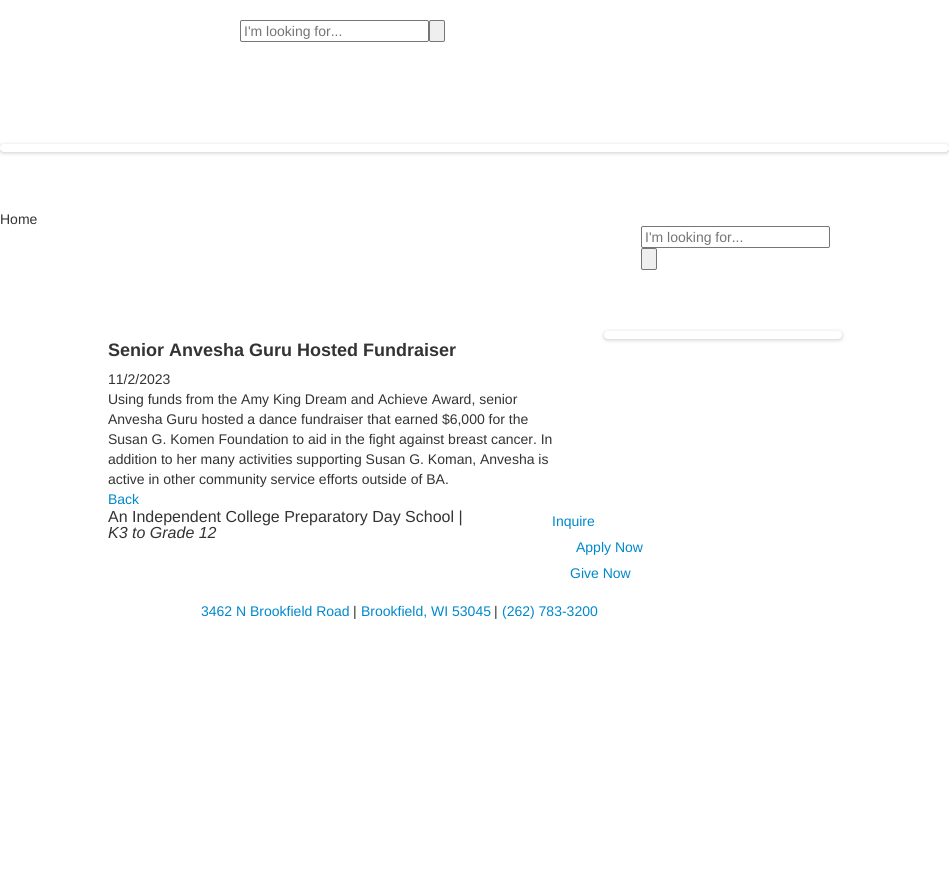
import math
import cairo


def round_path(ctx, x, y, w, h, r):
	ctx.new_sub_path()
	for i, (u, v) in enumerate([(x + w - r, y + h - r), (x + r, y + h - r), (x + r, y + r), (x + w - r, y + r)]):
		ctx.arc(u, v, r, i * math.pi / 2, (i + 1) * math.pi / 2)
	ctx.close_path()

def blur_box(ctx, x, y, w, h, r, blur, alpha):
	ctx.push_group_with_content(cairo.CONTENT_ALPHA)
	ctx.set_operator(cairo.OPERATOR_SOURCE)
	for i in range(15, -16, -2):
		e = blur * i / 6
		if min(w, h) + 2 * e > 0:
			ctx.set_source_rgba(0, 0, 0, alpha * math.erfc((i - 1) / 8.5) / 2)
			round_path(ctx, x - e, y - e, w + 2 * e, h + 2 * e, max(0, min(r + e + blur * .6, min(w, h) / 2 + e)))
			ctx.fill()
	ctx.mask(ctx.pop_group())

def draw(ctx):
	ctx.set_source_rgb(1, 1, 1)
	ctx.paint()
	round_path(ctx, 240.5, 20.5, 188, 21, 1.5)
	ctx.set_source_rgb(0.463, 0.463, 0.463)
	ctx.set_line_width(1)
	ctx.stroke()
	ctx.select_font_face('Liberation Sans')
	ctx.set_font_size(14)
	ctx.set_source_rgb(0.459, 0.459, 0.459)
	ctx.move_to(244, 36)
	ctx.show_text('I\'m looking for...')
	ctx.set_source_rgb(0.937, 0.937, 0.937)
	round_path(ctx, 429.5, 20.5, 15, 21, 1.5)
	ctx.fill_preserve()
	ctx.set_source_rgb(0.463, 0.463, 0.463)
	ctx.stroke()
	ctx.set_source_rgb(0, 0, 0)
	blur_box(ctx, 0, 145, 949, 8, 4, 2, 0.2)
	ctx.set_source_rgb(1, 1, 1)
	round_path(ctx, 0, 144, 949, 8, 4)
	ctx.fill()
	ctx.set_source_rgb(0.2, 0.2, 0.2)
	ctx.move_to(0, 224)
	ctx.show_text('Home')
	round_path(ctx, 641.5, 226.5, 188, 21, 1.5)
	ctx.set_source_rgb(0.463, 0.463, 0.463)
	ctx.stroke()
	ctx.set_source_rgb(0.459, 0.459, 0.459)
	ctx.move_to(645, 242)
	ctx.show_text('I\'m looking for...')
	ctx.set_source_rgb(0.937, 0.937, 0.937)
	round_path(ctx, 641.5, 248.5, 15, 21, 1.5)
	ctx.fill_preserve()
	ctx.set_source_rgb(0.463, 0.463, 0.463)
	ctx.stroke()
	ctx.set_source_rgb(0, 0, 0)
	blur_box(ctx, 604, 332, 238, 8, 4, 2, 0.2)
	ctx.set_source_rgb(1, 1, 1)
	round_path(ctx, 604, 331, 238, 8, 4)
	ctx.fill()
	ctx.select_font_face('Liberation Sans', cairo.FONT_SLANT_NORMAL, cairo.FONT_WEIGHT_BOLD)
	ctx.set_font_size(18)
	ctx.set_source_rgb(0.2, 0.2, 0.2)
	ctx.move_to(108, 356)
	ctx.show_text('Senior Anvesha Guru Hosted Fundraiser')
	ctx.select_font_face('Liberation Sans')
	ctx.set_font_size(14)
	for x, y, s in [
		(108, 384, '11/2/2023'),
		(108, 404, 'Using funds from the Amy King Dream and Achieve Award, senior'),
		(108, 424, 'Anvesha Guru hosted a dance fundraiser that earned $6,000 for the'),
		(108, 444, 'Susan G. Komen Foundation to aid in the fight against breast cancer. In'),
		(108, 464, 'addition to her many activities supporting Susan G. Koman, Anvesha is'),
		(108, 484, 'active in other community service efforts outside of BA.'),
	]:
		ctx.move_to(x, y)
		ctx.show_text(s)
	ctx.set_source_rgb(0, 0.533, 0.8)
	ctx.move_to(108, 504)
	ctx.show_text('Back')
	ctx.set_font_size(16)
	ctx.set_source_rgb(0.2, 0.2, 0.2)
	ctx.move_to(108, 522)
	ctx.show_text('An Independent College Preparatory Day School |')
	ctx.select_font_face('Liberation Sans', cairo.FONT_SLANT_ITALIC)
	ctx.move_to(108, 538)
	ctx.show_text('K3 to Grade 12')
	ctx.select_font_face('Liberation Sans')
	ctx.set_font_size(14)
	ctx.set_source_rgb(0, 0.533, 0.8)
	for x, y, s in [
		(552, 526, 'Inquire'),
		(576, 552, 'Apply Now'),
		(570, 578, 'Give Now'),
		(201, 616, '3462 N Brookfield Road'),
	]:
		ctx.move_to(x, y)
		ctx.show_text(s)
	ctx.set_source_rgb(0.2, 0.2, 0.2)
	ctx.move_to(353, 616)
	ctx.show_text('|')
	ctx.set_source_rgb(0, 0.533, 0.8)
	ctx.move_to(361, 616)
	ctx.show_text('Brookfield, WI 53045')
	ctx.set_source_rgb(0.2, 0.2, 0.2)
	ctx.move_to(494, 616)
	ctx.show_text('|')
	ctx.set_source_rgb(0, 0.533, 0.8)
	ctx.move_to(502, 616)
	ctx.show_text('(262) 783-3200')


surface = cairo.ImageSurface(cairo.FORMAT_RGB24, 949, 892)
ctx = cairo.Context(surface)
options = cairo.FontOptions()
options.set_hint_metrics(cairo.HINT_METRICS_OFF)
options.set_hint_style(cairo.HINT_STYLE_NONE)
ctx.set_font_options(options)
ctx.set_miter_limit(4)
draw(ctx)
surface.write_to_png('image.png')
